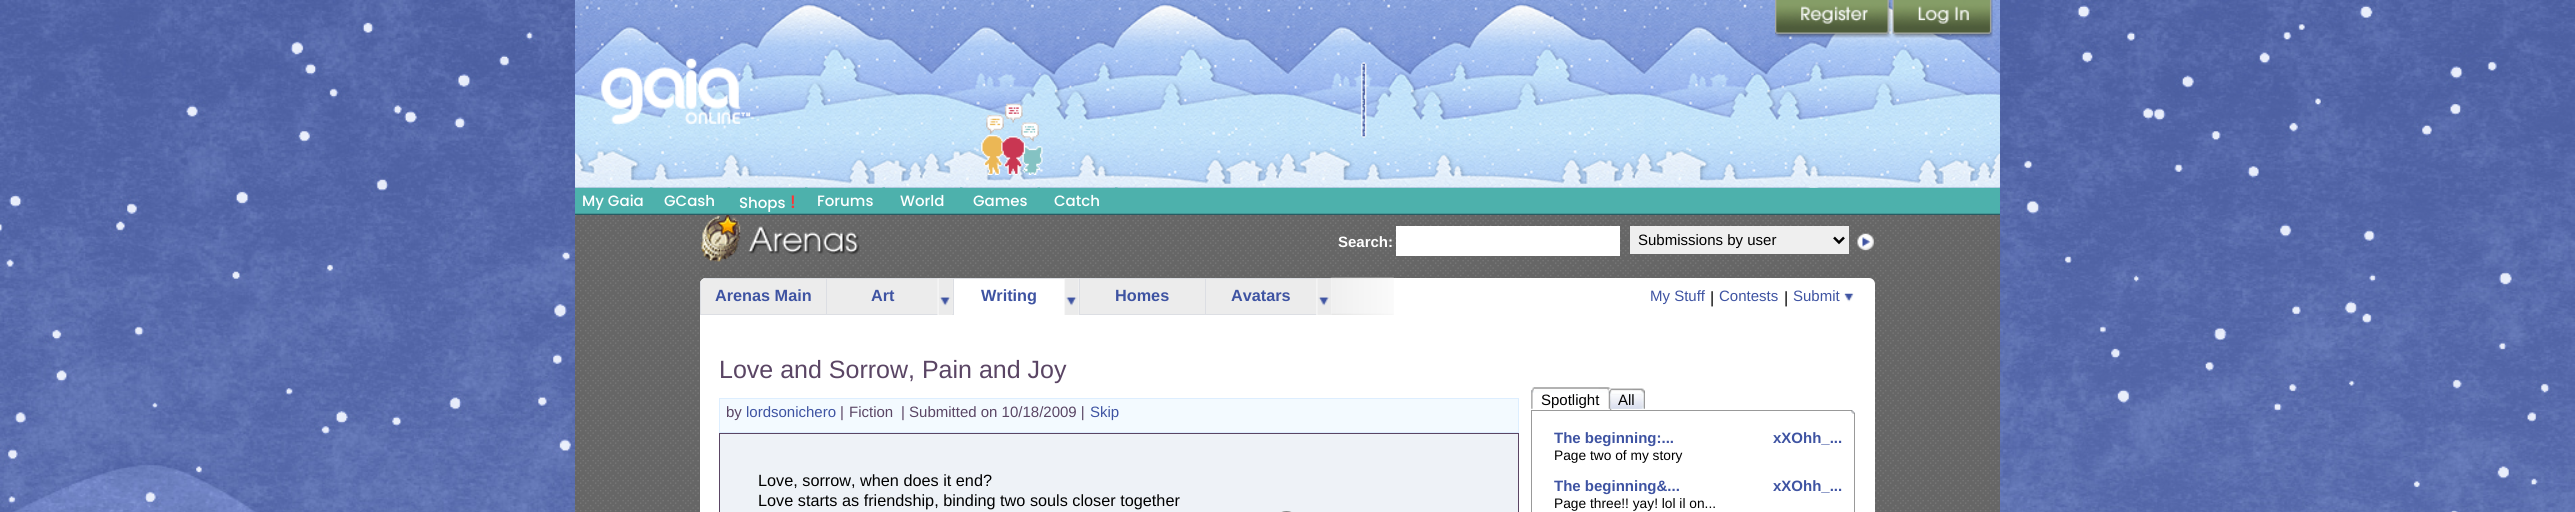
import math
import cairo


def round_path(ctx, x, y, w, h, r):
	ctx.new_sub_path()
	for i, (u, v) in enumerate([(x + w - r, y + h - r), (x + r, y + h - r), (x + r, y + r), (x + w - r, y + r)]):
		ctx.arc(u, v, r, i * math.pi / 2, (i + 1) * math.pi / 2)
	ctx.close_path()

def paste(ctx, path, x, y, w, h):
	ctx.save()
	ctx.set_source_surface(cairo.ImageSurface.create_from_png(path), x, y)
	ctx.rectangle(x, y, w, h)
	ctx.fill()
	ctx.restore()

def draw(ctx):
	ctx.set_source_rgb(1, 1, 1)
	ctx.paint()
	paste(ctx, 'media/1.png', 0, 0, 2575, 512)
	paste(ctx, 'media/2.png', 575, 0, 1425, 188)
	paste(ctx, 'media/9.png', 575, 187, 1425, 28)
	paste(ctx, 'media/3.png', 575, 0, 1425, 188)
	paste(ctx, 'media/4.png', 1775, 0, 117, 38)
	paste(ctx, 'media/5.png', 1892, 0, 101, 38)
	paste(ctx, 'media/6.png', 601, 58, 150, 67)
	paste(ctx, 'media/7.png', 981, 103, 62, 72)
	paste(ctx, 'media/8.png', 1361, 62, 6, 76)
	paste(ctx, 'media/10.png', 650, 187, 3, 1)
	paste(ctx, 'media/11.png', 727, 187, 3, 1)
	paste(ctx, 'media/12.png', 805, 187, 3, 1)
	paste(ctx, 'media/13.png', 882, 187, 3, 1)
	paste(ctx, 'media/14.png', 960, 187, 3, 1)
	paste(ctx, 'media/15.png', 1037, 187, 3, 1)
	paste(ctx, 'media/16.png', 1115, 187, 3, 1)
	ctx.select_font_face('Poppins Medium')
	ctx.set_font_size(15)
	ctx.set_source_rgb(1, 1, 1)
	for x, y, s in [
		(582, 206, 'My Gaia'),
		(664, 206, 'GCash'),
		(739, 208, 'Shops'),
	]:
		ctx.move_to(x, y)
		ctx.show_text(s)
	ctx.set_font_size(18)
	ctx.set_source_rgb(1, 0.2, 0.2)
	ctx.move_to(790, 208)
	ctx.show_text('!')
	ctx.set_font_size(15)
	ctx.set_source_rgb(1, 1, 1)
	for x, y, s in [
		(817, 206, 'Forums'),
		(900, 206, 'World'),
		(973, 206, 'Games'),
		(1054, 206, 'Catch'),
	]:
		ctx.move_to(x, y)
		ctx.show_text(s)
	paste(ctx, 'media/17.png', 575, 215, 1425, 297)
	paste(ctx, 'media/18.png', 701, 215, 159, 47)
	ctx.select_font_face('Liberation Sans', cairo.FONT_SLANT_NORMAL, cairo.FONT_WEIGHT_BOLD)
	ctx.move_to(1338, 247)
	ctx.show_text('Search:')
	ctx.rectangle(1396, 226, 224, 30)
	ctx.fill()
	ctx.set_source_rgb(0.937, 0.937, 0.937)
	ctx.rectangle(1630, 226, 219, 28)
	ctx.fill()
	ctx.new_path()
	ctx.move_to(1834, 237.5)
	ctx.line_to(1839, 242.5)
	ctx.line_to(1844, 237.5)
	ctx.set_source_rgb(0, 0, 0)
	ctx.set_line_width(2.5)
	ctx.stroke()
	ctx.select_font_face('Liberation Sans')
	ctx.move_to(1638, 245)
	ctx.show_text('Submissions by user')
	paste(ctx, 'media/19.png', 1857, 233, 17, 18)
	ctx.set_source_rgb(1, 1, 1)
	round_path(ctx, 700, 278, 1175, 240, 6)
	ctx.fill()
	ctx.set_source_rgb(0.922, 0.922, 0.922)
	ctx.new_path()
	ctx.move_to(706, 278)
	ctx.line_to(828, 278)
	ctx.line_to(828, 315)
	ctx.line_to(700, 315)
	ctx.line_to(700, 284)
	ctx.curve_to(700, 280.5, 702.5, 278, 706, 278)
	ctx.close_path()
	ctx.fill()
	ctx.set_source_rgb(0.863, 0.871, 0.89)
	ctx.new_path()
	ctx.move_to(706, 278)
	ctx.line_to(703, 279)
	ctx.line_to(827, 279)
	ctx.line_to(827, 314)
	ctx.line_to(701, 314)
	ctx.line_to(701, 281)
	ctx.curve_to(700, 282, 700, 283, 700, 284)
	ctx.line_to(700, 315)
	ctx.line_to(828, 315)
	ctx.line_to(828, 278)
	ctx.close_path()
	ctx.fill()
	ctx.select_font_face('Liberation Sans', cairo.FONT_SLANT_NORMAL, cairo.FONT_WEIGHT_BOLD)
	ctx.set_font_size(16.25)
	ctx.set_source_rgb(0.243, 0.325, 0.635)
	ctx.move_to(715, 301)
	ctx.show_text('Arenas Main')
	ctx.set_source_rgb(0.922, 0.922, 0.922)
	ctx.rectangle(826.5, 278.5, 127, 36)
	ctx.fill_preserve()
	ctx.set_source_rgb(0.863, 0.871, 0.89)
	ctx.set_line_width(1)
	ctx.stroke()
	ctx.set_source_rgb(0.243, 0.325, 0.635)
	ctx.move_to(871, 301)
	ctx.show_text('Art')
	paste(ctx, 'media/20.png', 937, 278, 16, 37)
	ctx.set_source_rgb(0.863, 0.871, 0.89)
	ctx.rectangle(953, 278, 127, 1)
	ctx.fill()
	ctx.set_source_rgb(0.243, 0.325, 0.635)
	ctx.move_to(981, 301)
	ctx.show_text('Writing')
	paste(ctx, 'media/21.png', 1064, 278, 15, 37)
	ctx.set_source_rgb(0.922, 0.922, 0.922)
	ctx.rectangle(1079.5, 278.5, 126, 36)
	ctx.fill_preserve()
	ctx.set_source_rgb(0.863, 0.871, 0.89)
	ctx.stroke()
	ctx.set_source_rgb(0.243, 0.325, 0.635)
	ctx.move_to(1115, 301)
	ctx.show_text('Homes')
	ctx.set_source_rgb(0.922, 0.922, 0.922)
	ctx.rectangle(1206, 279, 111, 35)
	ctx.fill()
	ctx.set_source_rgb(0.863, 0.871, 0.89)
	ctx.rectangle(1205, 278, 126, 1)
	ctx.rectangle(1205, 314, 112, 1)
	ctx.fill()
	ctx.set_source_rgb(0.243, 0.325, 0.635)
	ctx.move_to(1231, 301)
	ctx.show_text('Avatars')
	paste(ctx, 'media/22.png', 1316, 278, 16, 37)
	paste(ctx, 'media/23.png', 1331, 277, 63, 38)
	ctx.select_font_face('Liberation Sans')
	ctx.set_font_size(25)
	ctx.set_source_rgb(0.353, 0.271, 0.392)
	ctx.move_to(719, 378)
	ctx.show_text('Love and Sorrow, Pain and Joy')
	ctx.set_source_rgb(0.953, 0.98, 1)
	ctx.rectangle(719.5, 398.5, 799, 34)
	ctx.fill_preserve()
	ctx.set_source_rgb(0.867, 0.933, 1)
	ctx.stroke()
	ctx.set_font_size(15)
	ctx.set_source_rgb(0.353, 0.271, 0.392)
	ctx.move_to(726, 417)
	ctx.show_text('by')
	ctx.set_source_rgb(0.243, 0.325, 0.635)
	ctx.move_to(746, 417)
	ctx.show_text('lordsonichero')
	ctx.set_source_rgb(0.353, 0.271, 0.392)
	for x, y, s in [
		(840, 417, '|'),
		(849, 417, 'Fiction'),
		(901, 417, '| Submitted on 10/18/2009 |'),
	]:
		ctx.move_to(x, y)
		ctx.show_text(s)
	ctx.set_source_rgb(0.243, 0.325, 0.635)
	ctx.move_to(1090, 417)
	ctx.show_text('Skip')
	ctx.set_source_rgb(0.933, 0.949, 0.965)
	ctx.rectangle(720, 434, 798, 78)
	ctx.fill()
	ctx.set_source_rgb(0.353, 0.271, 0.392)
	ctx.rectangle(719, 433, 800, 1)
	ctx.rectangle(1518, 433, 1, 79)
	ctx.rectangle(719, 433, 1, 79)
	ctx.fill()
	ctx.set_font_size(16.25)
	ctx.set_source_rgb(0, 0, 0)
	ctx.move_to(758, 486)
	ctx.show_text('Love, sorrow, when does it end?')
	ctx.move_to(758, 506)
	ctx.show_text('Love starts as friendship, binding two souls closer together')
	ctx.set_font_size(15)
	ctx.set_source_rgb(0.243, 0.325, 0.635)
	ctx.move_to(1650, 301)
	ctx.show_text('My Stuff')
	ctx.set_font_size(16.25)
	ctx.set_source_rgb(0, 0, 0)
	ctx.move_to(1710, 303)
	ctx.show_text('|')
	ctx.set_font_size(15)
	ctx.set_source_rgb(0.243, 0.325, 0.635)
	ctx.move_to(1719, 301)
	ctx.show_text('Contests')
	ctx.set_font_size(16.25)
	ctx.set_source_rgb(0, 0, 0)
	ctx.move_to(1784, 303)
	ctx.show_text('|')
	ctx.set_font_size(15)
	ctx.set_source_rgb(0.243, 0.325, 0.635)
	ctx.move_to(1793, 301)
	ctx.show_text('Submit')
	paste(ctx, 'media/24.png', 1844, 293, 10, 9)
	paste(ctx, 'media/25.png', 1531, 387, 78, 22)
	paste(ctx, 'media/26.png', 1533, 387, 79, 23)
	paste(ctx, 'media/27.png', 1608, 388, 35, 21)
	ctx.set_source_rgb(0, 0, 0)
	ctx.move_to(1541, 405)
	ctx.show_text('Spotlight')
	paste(ctx, 'media/28.png', 1611, 388, 34, 21)
	ctx.move_to(1618, 405)
	ctx.show_text('All')
	ctx.rectangle(1531.5, 410.5, 323, 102)
	ctx.set_source_rgb(0.6, 0.6, 0.6)
	ctx.stroke()
	paste(ctx, 'media/29.png', 1851, 410, 4, 4)
	ctx.select_font_face('Liberation Sans', cairo.FONT_SLANT_NORMAL, cairo.FONT_WEIGHT_BOLD)
	ctx.set_source_rgb(0.243, 0.325, 0.635)
	ctx.move_to(1554, 443)
	ctx.show_text('The beginning:...')
	ctx.move_to(1773, 443)
	ctx.show_text('xXOhh_...')
	ctx.select_font_face('Liberation Sans')
	ctx.set_font_size(13.75)
	ctx.set_source_rgb(0, 0, 0)
	ctx.move_to(1554, 460)
	ctx.show_text('Page two of my story')
	ctx.select_font_face('Liberation Sans', cairo.FONT_SLANT_NORMAL, cairo.FONT_WEIGHT_BOLD)
	ctx.set_font_size(15)
	ctx.set_source_rgb(0.243, 0.325, 0.635)
	ctx.move_to(1554, 491)
	ctx.show_text('The beginning&...')
	ctx.move_to(1773, 491)
	ctx.show_text('xXOhh_...')
	ctx.select_font_face('Liberation Sans')
	ctx.set_font_size(13.75)
	ctx.set_source_rgb(0, 0, 0)
	ctx.move_to(1554, 508)
	ctx.show_text('Page three!! yay! lol il on...')
	round_path(ctx, 1273.5, 511.5, 26, 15, 13)
	ctx.set_source_rgb(0.961, 0.965, 0.969)
	ctx.stroke()
	round_path(ctx, 1273.5, 511.5, 26, 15, 13)
	ctx.set_source_rgb(0.533, 0.533, 0.533)
	ctx.stroke()


surface = cairo.ImageSurface(cairo.FORMAT_RGB24, 2575, 512)
ctx = cairo.Context(surface)
options = cairo.FontOptions()
options.set_hint_metrics(cairo.HINT_METRICS_OFF)
options.set_hint_style(cairo.HINT_STYLE_NONE)
ctx.set_font_options(options)
ctx.set_miter_limit(4)
draw(ctx)
surface.write_to_png('image.png')
